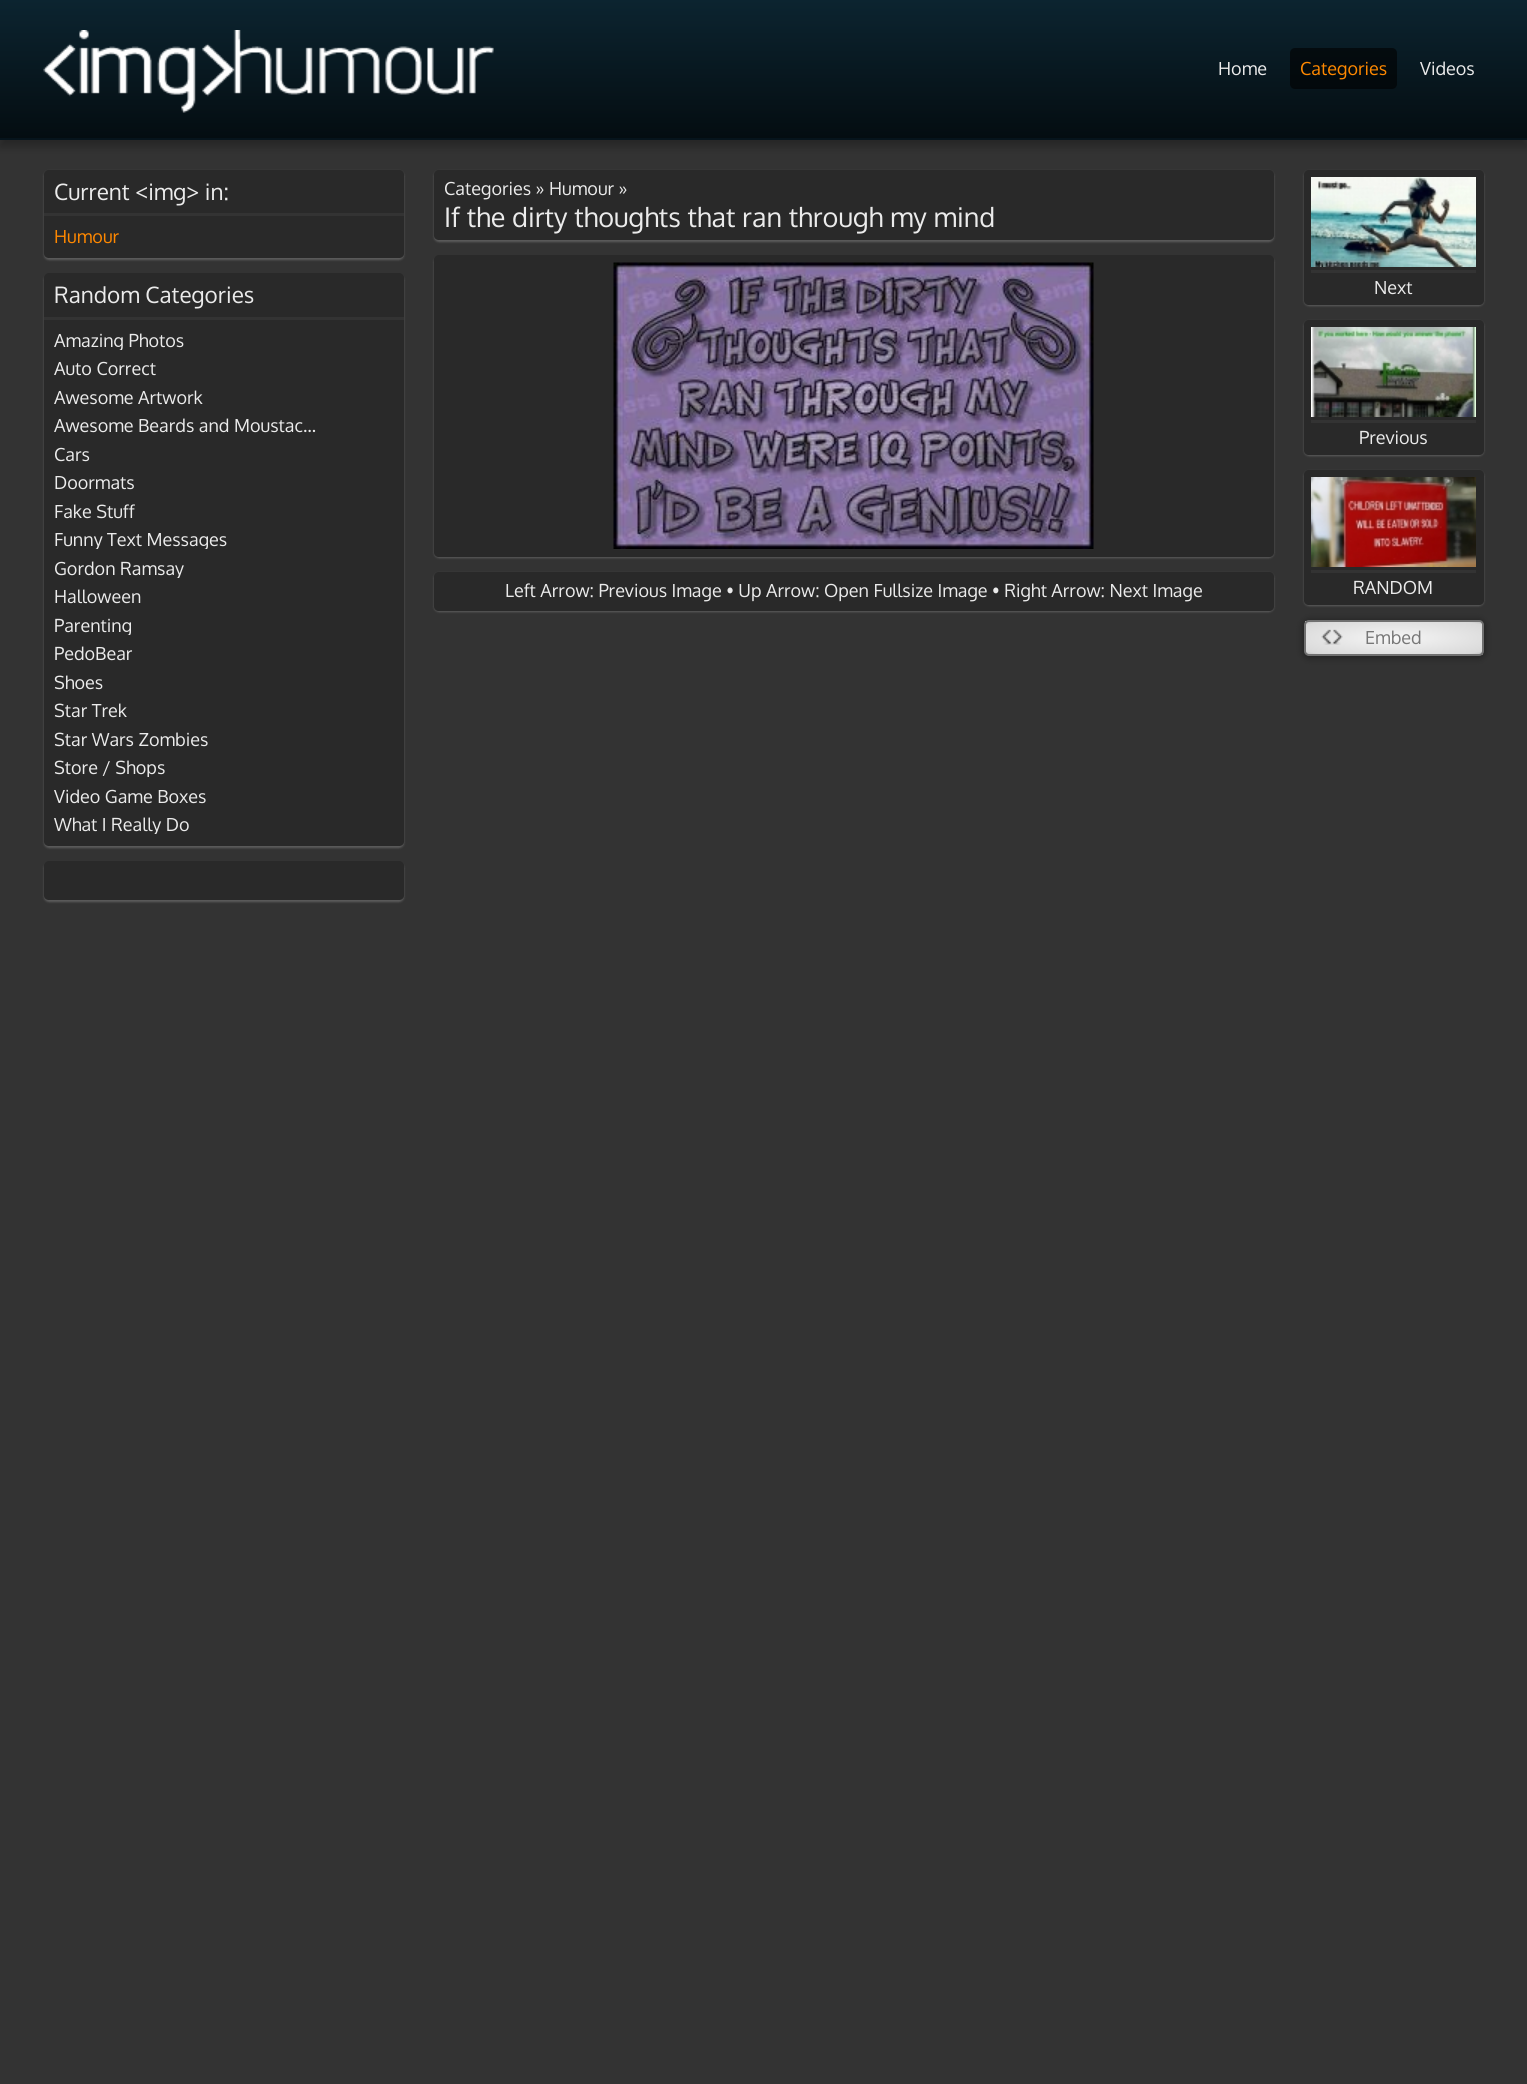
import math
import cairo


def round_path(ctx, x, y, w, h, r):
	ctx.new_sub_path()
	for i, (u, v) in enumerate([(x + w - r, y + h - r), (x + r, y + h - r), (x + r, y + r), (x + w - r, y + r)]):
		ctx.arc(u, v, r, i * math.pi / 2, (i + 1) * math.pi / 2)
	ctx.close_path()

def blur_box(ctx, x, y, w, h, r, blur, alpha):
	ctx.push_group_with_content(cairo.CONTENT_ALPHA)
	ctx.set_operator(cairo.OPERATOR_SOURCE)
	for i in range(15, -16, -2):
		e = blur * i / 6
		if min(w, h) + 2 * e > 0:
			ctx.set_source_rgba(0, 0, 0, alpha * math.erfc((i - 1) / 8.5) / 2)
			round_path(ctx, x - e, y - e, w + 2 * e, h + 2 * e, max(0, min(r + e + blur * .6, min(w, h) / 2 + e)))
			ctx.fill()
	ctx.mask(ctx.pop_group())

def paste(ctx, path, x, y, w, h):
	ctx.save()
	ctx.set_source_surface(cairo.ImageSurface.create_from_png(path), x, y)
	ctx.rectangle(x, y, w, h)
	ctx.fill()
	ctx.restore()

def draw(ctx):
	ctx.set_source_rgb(0.2, 0.2, 0.2)
	ctx.paint()
	ctx.set_source_rgb(0.039, 0.039, 0.039)
	blur_box(ctx, 0, 8, 1527, 139, 0, 4, 0.3)
	gradient = cairo.LinearGradient(764, 0, 764, 138)
	gradient.add_color_stop_rgba(0, 0.047, 0.141, 0.188, 1)
	gradient.add_color_stop_rgba(1, 0.016, 0.051, 0.067, 1)
	ctx.set_source(gradient)
	ctx.rectangle(0, 0, 1527, 138)
	ctx.fill()
	ctx.set_source_rgb(0.024, 0.082, 0.11)
	ctx.rectangle(0, 138, 1527, 2)
	ctx.fill()
	paste(ctx, 'media/1.png', 43, 30, 451, 83)
	ctx.select_font_face('Oxygen')
	ctx.set_font_size(18)
	ctx.set_source_rgb(0.918, 0.918, 0.918)
	ctx.move_to(1218, 75)
	ctx.show_text('Home')
	ctx.set_source_rgba(0, 0, 0, 0.6)
	round_path(ctx, 1290, 48, 107, 41, 5)
	ctx.fill()
	ctx.set_source_rgb(1, 0.533, 0)
	ctx.move_to(1300, 75)
	ctx.show_text('Categories')
	ctx.set_source_rgb(0.918, 0.918, 0.918)
	ctx.move_to(1420, 75)
	ctx.show_text('Videos')
	ctx.save()
	ctx.set_fill_rule(cairo.FILL_RULE_EVEN_ODD)
	ctx.new_path()
	ctx.move_to(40, 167)
	ctx.line_to(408, 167)
	ctx.line_to(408, 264)
	ctx.line_to(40, 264)
	ctx.close_path()
	ctx.move_to(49, 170)
	ctx.line_to(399, 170)
	ctx.curve_to(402, 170, 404, 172, 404, 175)
	ctx.line_to(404, 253)
	ctx.curve_to(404, 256, 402, 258, 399, 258)
	ctx.line_to(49, 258)
	ctx.curve_to(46, 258, 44, 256, 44, 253)
	ctx.line_to(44, 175)
	ctx.curve_to(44, 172, 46, 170, 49, 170)
	ctx.close_path()
	ctx.clip()
	ctx.set_source_rgb(1, 1, 1)
	blur_box(ctx, 44, 171, 360, 89, 5, 1, 0.2)
	ctx.restore()
	ctx.set_source_rgba(0, 0, 0, 0.2)
	round_path(ctx, 44, 170, 360, 88, 5)
	ctx.fill()
	ctx.set_source_rgb(0.2, 0.2, 0.2)
	ctx.rectangle(44, 213, 360, 3)
	ctx.fill()
	ctx.set_font_size(22.5)
	ctx.set_source_rgb(0.918, 0.918, 0.918)
	ctx.move_to(54, 200)
	ctx.show_text('Current <img> in:')
	ctx.set_font_size(18)
	ctx.set_source_rgb(1, 0.533, 0)
	ctx.move_to(54, 243)
	ctx.show_text('Humour')
	ctx.save()
	ctx.set_fill_rule(cairo.FILL_RULE_EVEN_ODD)
	ctx.new_path()
	ctx.move_to(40, 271)
	ctx.line_to(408, 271)
	ctx.line_to(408, 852)
	ctx.line_to(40, 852)
	ctx.close_path()
	ctx.move_to(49, 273)
	ctx.line_to(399, 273)
	ctx.curve_to(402, 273, 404, 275, 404, 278)
	ctx.line_to(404, 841)
	ctx.curve_to(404, 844, 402, 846, 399, 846)
	ctx.line_to(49, 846)
	ctx.curve_to(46, 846, 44, 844, 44, 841)
	ctx.line_to(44, 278)
	ctx.curve_to(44, 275, 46, 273, 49, 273)
	ctx.close_path()
	ctx.clip()
	ctx.set_source_rgb(1, 1, 1)
	blur_box(ctx, 44, 275, 360, 573, 5, 1, 0.2)
	ctx.restore()
	ctx.set_source_rgba(0, 0, 0, 0.2)
	round_path(ctx, 44, 273, 360, 573, 5)
	ctx.fill()
	ctx.set_source_rgb(0.2, 0.2, 0.2)
	ctx.rectangle(44, 317, 360, 3)
	ctx.fill()
	ctx.set_font_size(22.5)
	ctx.set_source_rgb(0.918, 0.918, 0.918)
	ctx.move_to(54, 303)
	ctx.show_text('Random Categories')
	ctx.save()
	ctx.rectangle(54, 332, 270, 18)
	ctx.clip()
	ctx.set_font_size(18)
	ctx.move_to(54, 347)
	ctx.show_text('Amazing Photos')
	ctx.restore()
	ctx.set_font_size(18)
	for x, y, s in [
		(54, 375, 'Auto Correct'),
		(54, 404, 'Awesome Artwork'),
		(54, 432, 'Awesome Beards and Moustac…'),
		(54, 461, 'Cars'),
		(54, 489, 'Doormats'),
		(54, 518, 'Fake Stuff'),
	]:
		ctx.move_to(x, y)
		ctx.show_text(s)
	ctx.save()
	ctx.rectangle(54, 531, 270, 18)
	ctx.clip()
	ctx.move_to(54, 546)
	ctx.show_text('Funny Text Messages')
	ctx.restore()
	ctx.save()
	ctx.rectangle(54, 560, 270, 18)
	ctx.clip()
	ctx.move_to(54, 575)
	ctx.show_text('Gordon Ramsay')
	ctx.restore()
	ctx.move_to(54, 603)
	ctx.show_text('Halloween')
	ctx.save()
	ctx.rectangle(54, 617, 270, 18)
	ctx.clip()
	ctx.move_to(54, 632)
	ctx.show_text('Parenting')
	ctx.restore()
	for x, y, s in [
		(54, 660, 'PedoBear'),
		(54, 689, 'Shoes'),
		(54, 717, 'Star Trek'),
		(54, 746, 'Star Wars Zombies'),
	]:
		ctx.move_to(x, y)
		ctx.show_text(s)
	ctx.save()
	ctx.rectangle(54, 759, 270, 18)
	ctx.clip()
	ctx.move_to(54, 774)
	ctx.show_text('Store / Shops')
	ctx.restore()
	ctx.move_to(54, 803)
	ctx.show_text('Video Game Boxes')
	ctx.save()
	ctx.rectangle(54, 816, 270, 18)
	ctx.clip()
	ctx.move_to(54, 831)
	ctx.show_text('What I Really Do')
	ctx.restore()
	ctx.save()
	ctx.set_fill_rule(cairo.FILL_RULE_EVEN_ODD)
	ctx.new_path()
	ctx.move_to(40, 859)
	ctx.line_to(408, 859)
	ctx.line_to(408, 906)
	ctx.line_to(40, 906)
	ctx.close_path()
	ctx.move_to(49, 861)
	ctx.line_to(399, 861)
	ctx.curve_to(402, 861, 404, 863, 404, 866)
	ctx.line_to(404, 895)
	ctx.curve_to(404, 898, 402, 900, 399, 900)
	ctx.line_to(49, 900)
	ctx.curve_to(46, 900, 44, 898, 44, 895)
	ctx.line_to(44, 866)
	ctx.curve_to(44, 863, 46, 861, 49, 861)
	ctx.close_path()
	ctx.clip()
	ctx.set_source_rgb(1, 1, 1)
	blur_box(ctx, 44, 863, 360, 39, 5, 1, 0.2)
	ctx.restore()
	ctx.set_source_rgba(0, 0, 0, 0.2)
	round_path(ctx, 44, 861, 360, 39, 5)
	ctx.fill()
	ctx.save()
	ctx.set_fill_rule(cairo.FILL_RULE_EVEN_ODD)
	ctx.new_path()
	ctx.move_to(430, 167)
	ctx.line_to(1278, 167)
	ctx.line_to(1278, 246)
	ctx.line_to(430, 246)
	ctx.close_path()
	ctx.move_to(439, 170)
	ctx.line_to(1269, 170)
	ctx.curve_to(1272, 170, 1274, 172, 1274, 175)
	ctx.line_to(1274, 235)
	ctx.curve_to(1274, 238, 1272, 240, 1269, 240)
	ctx.line_to(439, 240)
	ctx.curve_to(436, 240, 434, 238, 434, 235)
	ctx.line_to(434, 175)
	ctx.curve_to(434, 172, 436, 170, 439, 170)
	ctx.close_path()
	ctx.clip()
	ctx.set_source_rgb(1, 1, 1)
	blur_box(ctx, 434, 171, 840, 71, 5, 1, 0.2)
	ctx.restore()
	round_path(ctx, 434, 170, 840, 70, 5)
	ctx.fill()
	ctx.set_source_rgb(0.918, 0.918, 0.918)
	ctx.move_to(444, 195)
	ctx.show_text('Categories » Humour »')
	ctx.set_font_size(27)
	ctx.move_to(444, 227)
	ctx.show_text('If the dirty thoughts that ran through my mind')
	ctx.save()
	ctx.set_fill_rule(cairo.FILL_RULE_EVEN_ODD)
	ctx.new_path()
	ctx.move_to(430, 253)
	ctx.line_to(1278, 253)
	ctx.line_to(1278, 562)
	ctx.line_to(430, 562)
	ctx.close_path()
	ctx.move_to(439, 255)
	ctx.line_to(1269, 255)
	ctx.curve_to(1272, 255, 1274, 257, 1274, 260)
	ctx.line_to(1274, 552)
	ctx.curve_to(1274, 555, 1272, 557, 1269, 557)
	ctx.line_to(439, 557)
	ctx.curve_to(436, 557, 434, 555, 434, 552)
	ctx.line_to(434, 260)
	ctx.curve_to(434, 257, 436, 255, 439, 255)
	ctx.close_path()
	ctx.clip()
	ctx.set_source_rgb(1, 1, 1)
	blur_box(ctx, 434, 257, 840, 301, 5, 1, 0.2)
	ctx.restore()
	ctx.set_source_rgba(0, 0, 0, 0.2)
	round_path(ctx, 434, 255, 840, 302, 5)
	ctx.fill()
	paste(ctx, 'media/2.png', 613, 262, 481, 287)
	ctx.save()
	ctx.set_fill_rule(cairo.FILL_RULE_EVEN_ODD)
	ctx.new_path()
	ctx.move_to(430, 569)
	ctx.line_to(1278, 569)
	ctx.line_to(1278, 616)
	ctx.line_to(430, 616)
	ctx.close_path()
	ctx.move_to(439, 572)
	ctx.line_to(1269, 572)
	ctx.curve_to(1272, 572, 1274, 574, 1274, 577)
	ctx.line_to(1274, 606)
	ctx.curve_to(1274, 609, 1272, 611, 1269, 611)
	ctx.line_to(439, 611)
	ctx.curve_to(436, 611, 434, 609, 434, 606)
	ctx.line_to(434, 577)
	ctx.curve_to(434, 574, 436, 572, 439, 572)
	ctx.close_path()
	ctx.clip()
	ctx.set_source_rgb(1, 1, 1)
	blur_box(ctx, 434, 573, 840, 39, 5, 1, 0.2)
	ctx.restore()
	round_path(ctx, 434, 572, 840, 39, 5)
	ctx.fill()
	ctx.set_font_size(18)
	ctx.set_source_rgb(0.918, 0.918, 0.918)
	ctx.move_to(505, 597)
	ctx.show_text('Left Arrow: Previous Image • Up Arrow: Open Fullsize Image • Right Arrow: Next Image')
	ctx.save()
	ctx.set_fill_rule(cairo.FILL_RULE_EVEN_ODD)
	ctx.new_path()
	ctx.move_to(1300, 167)
	ctx.line_to(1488, 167)
	ctx.line_to(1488, 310)
	ctx.line_to(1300, 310)
	ctx.close_path()
	ctx.move_to(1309, 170)
	ctx.line_to(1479, 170)
	ctx.curve_to(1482, 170, 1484, 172, 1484, 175)
	ctx.line_to(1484, 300)
	ctx.curve_to(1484, 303, 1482, 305, 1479, 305)
	ctx.line_to(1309, 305)
	ctx.curve_to(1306, 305, 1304, 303, 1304, 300)
	ctx.line_to(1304, 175)
	ctx.curve_to(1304, 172, 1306, 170, 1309, 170)
	ctx.close_path()
	ctx.clip()
	ctx.set_source_rgb(1, 1, 1)
	blur_box(ctx, 1304, 171, 180, 135, 5, 1, 0.2)
	ctx.restore()
	ctx.set_source_rgba(0, 0, 0, 0.2)
	round_path(ctx, 1304, 170, 180, 135, 5)
	ctx.fill()
	paste(ctx, 'media/3.png', 1311, 177, 165, 90)
	ctx.set_source_rgb(0.2, 0.2, 0.2)
	ctx.rectangle(1311, 270, 165, 3)
	ctx.fill()
	ctx.set_source_rgb(0.918, 0.918, 0.918)
	ctx.move_to(1374, 294)
	ctx.show_text('Next')
	ctx.save()
	ctx.set_fill_rule(cairo.FILL_RULE_EVEN_ODD)
	ctx.new_path()
	ctx.move_to(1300, 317)
	ctx.line_to(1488, 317)
	ctx.line_to(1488, 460)
	ctx.line_to(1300, 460)
	ctx.close_path()
	ctx.move_to(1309, 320)
	ctx.line_to(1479, 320)
	ctx.curve_to(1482, 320, 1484, 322, 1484, 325)
	ctx.line_to(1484, 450)
	ctx.curve_to(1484, 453, 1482, 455, 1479, 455)
	ctx.line_to(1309, 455)
	ctx.curve_to(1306, 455, 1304, 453, 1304, 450)
	ctx.line_to(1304, 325)
	ctx.curve_to(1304, 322, 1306, 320, 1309, 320)
	ctx.close_path()
	ctx.clip()
	ctx.set_source_rgb(1, 1, 1)
	blur_box(ctx, 1304, 321, 180, 135, 5, 1, 0.2)
	ctx.restore()
	ctx.set_source_rgba(0, 0, 0, 0.2)
	round_path(ctx, 1304, 320, 180, 135, 5)
	ctx.fill()
	paste(ctx, 'media/4.png', 1311, 327, 165, 90)
	ctx.set_source_rgb(0.2, 0.2, 0.2)
	ctx.rectangle(1311, 420, 165, 3)
	ctx.fill()
	ctx.set_source_rgb(0.918, 0.918, 0.918)
	ctx.move_to(1359, 444)
	ctx.show_text('Previous')
	ctx.save()
	ctx.set_fill_rule(cairo.FILL_RULE_EVEN_ODD)
	ctx.new_path()
	ctx.move_to(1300, 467)
	ctx.line_to(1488, 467)
	ctx.line_to(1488, 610)
	ctx.line_to(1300, 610)
	ctx.close_path()
	ctx.move_to(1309, 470)
	ctx.line_to(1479, 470)
	ctx.curve_to(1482, 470, 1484, 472, 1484, 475)
	ctx.line_to(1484, 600)
	ctx.curve_to(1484, 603, 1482, 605, 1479, 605)
	ctx.line_to(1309, 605)
	ctx.curve_to(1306, 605, 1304, 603, 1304, 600)
	ctx.line_to(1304, 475)
	ctx.curve_to(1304, 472, 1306, 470, 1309, 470)
	ctx.close_path()
	ctx.clip()
	ctx.set_source_rgb(1, 1, 1)
	blur_box(ctx, 1304, 471, 180, 135, 5, 1, 0.2)
	ctx.restore()
	ctx.set_source_rgba(0, 0, 0, 0.2)
	round_path(ctx, 1304, 470, 180, 135, 5)
	ctx.fill()
	paste(ctx, 'media/5.png', 1311, 477, 165, 90)
	ctx.set_source_rgb(0.2, 0.2, 0.2)
	ctx.rectangle(1311, 570, 165, 3)
	ctx.fill()
	ctx.set_source_rgb(0.918, 0.918, 0.918)
	ctx.move_to(1353, 594)
	ctx.show_text('RANDOM')
	ctx.set_source_rgb(0, 0, 0)
	blur_box(ctx, 1304, 621, 180, 36, 5, 4, 0.45)
	gradient = cairo.RadialGradient(0, 0, 0, 0, 0, 1)
	gradient.set_matrix(cairo.Matrix(1 / 125, 0, 0, 1 / 23, -1 * 1394 / 125, -1 * 638 / 23))
	gradient.add_color_stop_rgba(0, 0.988, 0.988, 0.988, 1)
	gradient.add_color_stop_rgba(0.03, 0.969, 0.969, 0.969, 1)
	gradient.add_color_stop_rgba(0.12, 0.949, 0.949, 0.949, 1)
	gradient.add_color_stop_rgba(0.9, 0.851, 0.851, 0.851, 1)
	gradient.add_color_stop_rgba(1, 0.749, 0.749, 0.749, 1)
	ctx.set_source(gradient)
	ctx.rectangle(1305, 621, 177, 33)
	ctx.fill()
	ctx.save()
	round_path(ctx, 1304, 620, 180, 36, 5)
	ctx.clip()
	gradient = cairo.RadialGradient(0, 0, 0, 0, 0, 1)
	gradient.set_matrix(cairo.Matrix(1 / 125, 0, 0, 1 / 23, -1 * 1571 / 125, -1 * 671 / 23))
	gradient.add_color_stop_rgba(0, 0.988, 0.988, 0.988, 1)
	gradient.add_color_stop_rgba(0.03, 0.969, 0.969, 0.969, 1)
	gradient.add_color_stop_rgba(0.12, 0.949, 0.949, 0.949, 1)
	gradient.add_color_stop_rgba(0.9, 0.851, 0.851, 0.851, 1)
	gradient.add_color_stop_rgba(1, 0.749, 0.749, 0.749, 1)
	ctx.set_source(gradient)
	ctx.rectangle(1482, 654, 2, 1)
	ctx.fill()
	ctx.restore()
	ctx.set_source_rgb(1, 1, 1)
	ctx.new_path()
	ctx.move_to(1308, 622)
	ctx.line_to(1479, 622)
	ctx.curve_to(1481, 622, 1482, 624, 1482, 626)
	ctx.line_to(1482, 624)
	ctx.curve_to(1482, 622, 1481, 621, 1479, 621)
	ctx.line_to(1308, 621)
	ctx.curve_to(1306, 621, 1305, 622, 1305, 624)
	ctx.line_to(1305, 626)
	ctx.curve_to(1305, 624, 1306, 622, 1308, 622)
	ctx.close_path()
	ctx.fill()
	round_path(ctx, 1305, 621, 178, 34, 4)
	ctx.set_source_rgb(0.439, 0.439, 0.439)
	ctx.stroke()
	paste(ctx, 'media/6.png', 1321, 629, 22, 16)
	ctx.set_source_rgb(0.467, 0.467, 0.467)
	ctx.move_to(1365, 644)
	ctx.show_text('Embed')


surface = cairo.ImageSurface(cairo.FORMAT_RGB24, 1527, 2084)
ctx = cairo.Context(surface)
options = cairo.FontOptions()
options.set_hint_metrics(cairo.HINT_METRICS_OFF)
options.set_hint_style(cairo.HINT_STYLE_NONE)
ctx.set_font_options(options)
ctx.set_miter_limit(4)
draw(ctx)
surface.write_to_png('image.png')
